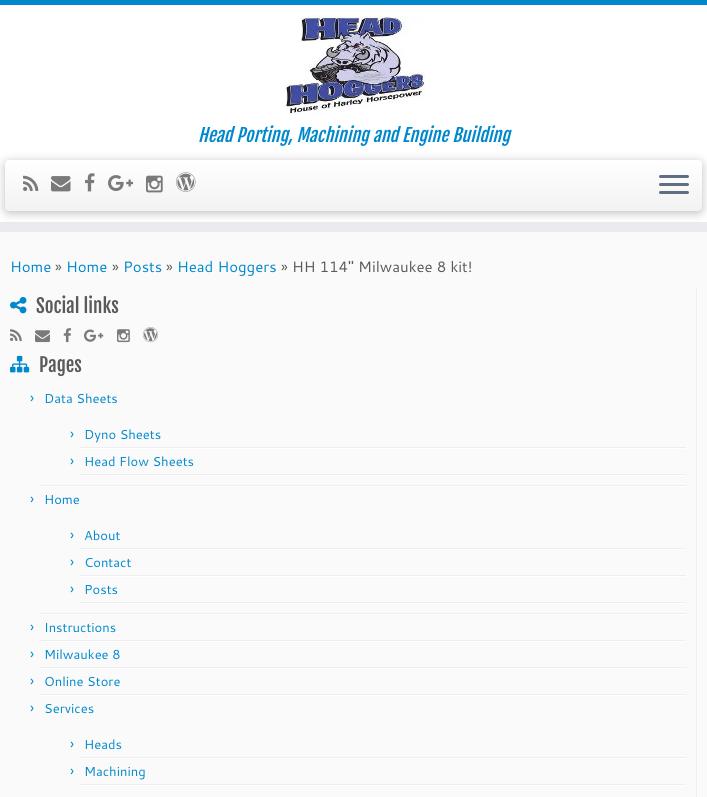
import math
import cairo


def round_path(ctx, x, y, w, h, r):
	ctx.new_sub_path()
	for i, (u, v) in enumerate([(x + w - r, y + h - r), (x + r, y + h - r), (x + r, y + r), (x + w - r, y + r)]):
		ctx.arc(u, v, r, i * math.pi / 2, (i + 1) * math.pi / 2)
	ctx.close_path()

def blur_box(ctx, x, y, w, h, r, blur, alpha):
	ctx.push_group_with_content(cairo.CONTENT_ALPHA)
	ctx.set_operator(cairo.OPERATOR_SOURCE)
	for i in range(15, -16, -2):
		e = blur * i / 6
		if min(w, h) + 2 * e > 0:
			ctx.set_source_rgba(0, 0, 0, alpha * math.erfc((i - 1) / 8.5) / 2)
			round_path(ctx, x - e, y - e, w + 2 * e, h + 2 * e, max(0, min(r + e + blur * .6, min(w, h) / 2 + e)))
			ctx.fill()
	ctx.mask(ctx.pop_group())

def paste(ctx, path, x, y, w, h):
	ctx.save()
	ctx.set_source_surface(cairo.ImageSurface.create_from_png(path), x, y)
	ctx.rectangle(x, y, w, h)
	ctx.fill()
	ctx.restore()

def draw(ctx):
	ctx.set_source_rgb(0.98, 0.98, 0.98)
	ctx.paint()
	ctx.set_source_rgb(1, 1, 1)
	ctx.rectangle(0, 5, 707, 217)
	ctx.fill()
	ctx.set_source_rgb(0, 0.533, 0.8)
	ctx.rectangle(0, 0, 707, 5)
	ctx.fill()
	ctx.set_source_rgb(0.914, 0.918, 0.933)
	ctx.rectangle(0, 222, 707, 10)
	ctx.fill()
	paste(ctx, 'media/1.png', 285, 15, 143, 100)
	ctx.select_font_face('Fjalla One', cairo.FONT_SLANT_ITALIC)
	ctx.set_font_size(18)
	ctx.set_source_rgb(0, 0.533, 0.8)
	ctx.move_to(198, 142)
	ctx.show_text('Head Porting, Machining and Engine Building')
	ctx.set_source_rgb(0, 0, 0)
	blur_box(ctx, 5, 162, 697, 51, 4, 5, 0.25)
	gradient = cairo.LinearGradient(354, 160, 354, 211)
	gradient.add_color_stop_rgba(0, 1, 1, 1, 1)
	gradient.add_color_stop_rgba(1, 0.949, 0.949, 0.949, 1)
	ctx.set_source(gradient)
	round_path(ctx, 5, 160, 697, 51, 4)
	ctx.fill()
	paste(ctx, 'media/2.png', 23, 175, 16, 16)
	paste(ctx, 'media/3.png', 51, 176, 20, 16)
	paste(ctx, 'media/4.png', 85, 173, 10, 19)
	paste(ctx, 'media/5.png', 108, 175, 26, 16)
	paste(ctx, 'media/6.png', 146, 175, 17, 18)
	paste(ctx, 'media/7.png', 176, 172, 20, 20)
	ctx.set_source_rgb(0.373, 0.435, 0.506)
	round_path(ctx, 659, 175, 30, 3, 1.5)
	ctx.fill()
	round_path(ctx, 659, 183, 30, 3, 1.5)
	ctx.fill()
	round_path(ctx, 659, 191, 30, 3, 1.5)
	ctx.fill()
	ctx.select_font_face('Cantarell')
	ctx.set_font_size(15)
	ctx.set_source_rgb(0, 0.533, 0.8)
	ctx.move_to(10, 272)
	ctx.show_text('Home')
	ctx.set_source_rgb(0.353, 0.353, 0.353)
	ctx.move_to(55, 272)
	ctx.show_text('»')
	ctx.set_source_rgb(0, 0.533, 0.8)
	ctx.move_to(66, 272)
	ctx.show_text('Home')
	ctx.set_source_rgb(0.353, 0.353, 0.353)
	ctx.move_to(112, 272)
	ctx.show_text('»')
	ctx.set_source_rgb(0, 0.533, 0.8)
	ctx.move_to(123, 272)
	ctx.show_text('Posts')
	ctx.set_source_rgb(0.353, 0.353, 0.353)
	ctx.move_to(166, 272)
	ctx.show_text('»')
	ctx.set_source_rgb(0, 0.533, 0.8)
	ctx.move_to(177, 272)
	ctx.show_text('Head Hoggers')
	ctx.set_source_rgb(0.353, 0.353, 0.353)
	ctx.move_to(281, 272)
	ctx.show_text('» HH 114″ Milwaukee 8 kit!')
	ctx.set_source_rgb(0.933, 0.933, 0.933)
	ctx.rectangle(696, 287, 1, 510)
	ctx.fill()
	paste(ctx, 'media/8.png', 10, 297, 17, 17)
	ctx.select_font_face('Fjalla One')
	ctx.set_font_size(19)
	ctx.set_source_rgb(0.353, 0.353, 0.353)
	ctx.move_to(36, 313)
	ctx.show_text('Social links')
	paste(ctx, 'media/9.png', 10, 329, 12, 12)
	paste(ctx, 'media/10.png', 35, 330, 15, 13)
	paste(ctx, 'media/11.png', 63, 328, 8, 15)
	paste(ctx, 'media/12.png', 84, 329, 20, 13)
	paste(ctx, 'media/13.png', 117, 329, 13, 14)
	paste(ctx, 'media/14.png', 143, 327, 15, 16)
	ctx.set_source_rgb(1, 1, 1)
	ctx.rectangle(697, 287, 1, 510)
	ctx.fill()
	paste(ctx, 'media/15.png', 10, 355, 20, 18)
	ctx.set_source_rgb(0.353, 0.353, 0.353)
	ctx.move_to(39, 372)
	ctx.show_text('Pages')
	ctx.set_source_rgb(0.933, 0.933, 0.933)
	ctx.rectangle(40, 485, 646, 1)
	ctx.fill()
	ctx.select_font_face('Cantarell')
	ctx.set_font_size(15)
	ctx.set_source_rgb(0, 0.533, 0.8)
	ctx.move_to(30, 403)
	ctx.show_text('›')
	ctx.set_font_size(13)
	ctx.move_to(44, 403)
	ctx.show_text('Data Sheets')
	ctx.set_source_rgb(0.933, 0.933, 0.933)
	ctx.rectangle(80, 447, 606, 1)
	ctx.fill()
	ctx.set_font_size(15)
	ctx.set_source_rgb(0, 0.533, 0.8)
	ctx.move_to(70, 439)
	ctx.show_text('›')
	ctx.set_font_size(13)
	ctx.move_to(84, 439)
	ctx.show_text('Dyno Sheets')
	ctx.set_source_rgb(1, 1, 1)
	ctx.rectangle(80, 448, 606, 1)
	ctx.fill()
	ctx.set_source_rgb(0.933, 0.933, 0.933)
	ctx.rectangle(80, 474, 606, 1)
	ctx.fill()
	ctx.set_font_size(15)
	ctx.set_source_rgb(0, 0.533, 0.8)
	ctx.move_to(70, 466)
	ctx.show_text('›')
	ctx.set_font_size(13)
	ctx.move_to(84, 466)
	ctx.show_text('Head Flow Sheets')
	ctx.set_source_rgb(1, 1, 1)
	ctx.rectangle(80, 475, 606, 1)
	ctx.rectangle(40, 486, 646, 1)
	ctx.fill()
	ctx.set_source_rgb(0.933, 0.933, 0.933)
	ctx.rectangle(40, 613, 646, 1)
	ctx.fill()
	ctx.set_font_size(15)
	ctx.set_source_rgb(0, 0.533, 0.8)
	ctx.move_to(30, 504)
	ctx.show_text('›')
	ctx.set_font_size(13)
	ctx.move_to(44, 504)
	ctx.show_text('Home')
	ctx.set_source_rgb(0.933, 0.933, 0.933)
	ctx.rectangle(80, 548, 606, 1)
	ctx.fill()
	ctx.set_font_size(15)
	ctx.set_source_rgb(0, 0.533, 0.8)
	ctx.move_to(70, 540)
	ctx.show_text('›')
	ctx.set_font_size(13)
	ctx.move_to(84, 540)
	ctx.show_text('About')
	ctx.set_source_rgb(1, 1, 1)
	ctx.rectangle(80, 549, 606, 1)
	ctx.fill()
	ctx.set_source_rgb(0.933, 0.933, 0.933)
	ctx.rectangle(80, 575, 606, 1)
	ctx.fill()
	ctx.set_font_size(15)
	ctx.set_source_rgb(0, 0.533, 0.8)
	ctx.move_to(70, 567)
	ctx.show_text('›')
	ctx.set_font_size(13)
	ctx.move_to(84, 567)
	ctx.show_text('Contact')
	ctx.set_source_rgb(1, 1, 1)
	ctx.rectangle(80, 576, 606, 1)
	ctx.fill()
	ctx.set_source_rgb(0.933, 0.933, 0.933)
	ctx.rectangle(80, 602, 606, 1)
	ctx.fill()
	ctx.set_font_size(15)
	ctx.set_source_rgb(0, 0.533, 0.8)
	ctx.move_to(70, 594)
	ctx.show_text('›')
	ctx.set_font_size(13)
	ctx.move_to(84, 594)
	ctx.show_text('Posts')
	ctx.set_source_rgb(1, 1, 1)
	ctx.rectangle(80, 603, 606, 1)
	ctx.rectangle(40, 614, 646, 1)
	ctx.fill()
	ctx.set_source_rgb(0.933, 0.933, 0.933)
	ctx.rectangle(40, 640, 646, 1)
	ctx.fill()
	ctx.set_font_size(15)
	ctx.set_source_rgb(0, 0.533, 0.8)
	ctx.move_to(30, 632)
	ctx.show_text('›')
	ctx.set_font_size(13)
	ctx.move_to(44, 632)
	ctx.show_text('Instructions')
	ctx.set_source_rgb(1, 1, 1)
	ctx.rectangle(40, 641, 646, 1)
	ctx.fill()
	ctx.set_source_rgb(0.933, 0.933, 0.933)
	ctx.rectangle(40, 667, 646, 1)
	ctx.fill()
	ctx.set_font_size(15)
	ctx.set_source_rgb(0, 0.533, 0.8)
	ctx.move_to(30, 659)
	ctx.show_text('›')
	ctx.set_font_size(13)
	ctx.move_to(44, 659)
	ctx.show_text('Milwaukee 8')
	ctx.set_source_rgb(1, 1, 1)
	ctx.rectangle(40, 668, 646, 1)
	ctx.fill()
	ctx.set_source_rgb(0.933, 0.933, 0.933)
	ctx.rectangle(40, 694, 646, 1)
	ctx.fill()
	ctx.set_font_size(15)
	ctx.set_source_rgb(0, 0.533, 0.8)
	ctx.move_to(30, 686)
	ctx.show_text('›')
	ctx.set_font_size(13)
	ctx.move_to(44, 686)
	ctx.show_text('Online Store')
	ctx.set_source_rgb(1, 1, 1)
	ctx.rectangle(40, 695, 646, 1)
	ctx.fill()
	ctx.set_font_size(15)
	ctx.set_source_rgb(0, 0.533, 0.8)
	ctx.move_to(30, 713)
	ctx.show_text('›')
	ctx.set_font_size(13)
	ctx.move_to(44, 713)
	ctx.show_text('Services')
	ctx.set_source_rgb(0.933, 0.933, 0.933)
	ctx.rectangle(80, 757, 606, 1)
	ctx.fill()
	ctx.set_font_size(15)
	ctx.set_source_rgb(0, 0.533, 0.8)
	ctx.move_to(70, 749)
	ctx.show_text('›')
	ctx.set_font_size(13)
	ctx.move_to(84, 749)
	ctx.show_text('Heads')
	ctx.set_source_rgb(1, 1, 1)
	ctx.rectangle(80, 758, 606, 1)
	ctx.fill()
	ctx.set_source_rgb(0.933, 0.933, 0.933)
	ctx.rectangle(80, 784, 606, 1)
	ctx.fill()
	ctx.set_font_size(15)
	ctx.set_source_rgb(0, 0.533, 0.8)
	ctx.move_to(70, 776)
	ctx.show_text('›')
	ctx.set_font_size(13)
	ctx.move_to(84, 776)
	ctx.show_text('Machining')
	ctx.set_source_rgb(1, 1, 1)
	ctx.rectangle(80, 785, 606, 1)
	ctx.fill()


surface = cairo.ImageSurface(cairo.FORMAT_RGB24, 707, 797)
ctx = cairo.Context(surface)
options = cairo.FontOptions()
options.set_hint_metrics(cairo.HINT_METRICS_OFF)
options.set_hint_style(cairo.HINT_STYLE_NONE)
ctx.set_font_options(options)
ctx.set_miter_limit(4)
draw(ctx)
surface.write_to_png('image.png')
